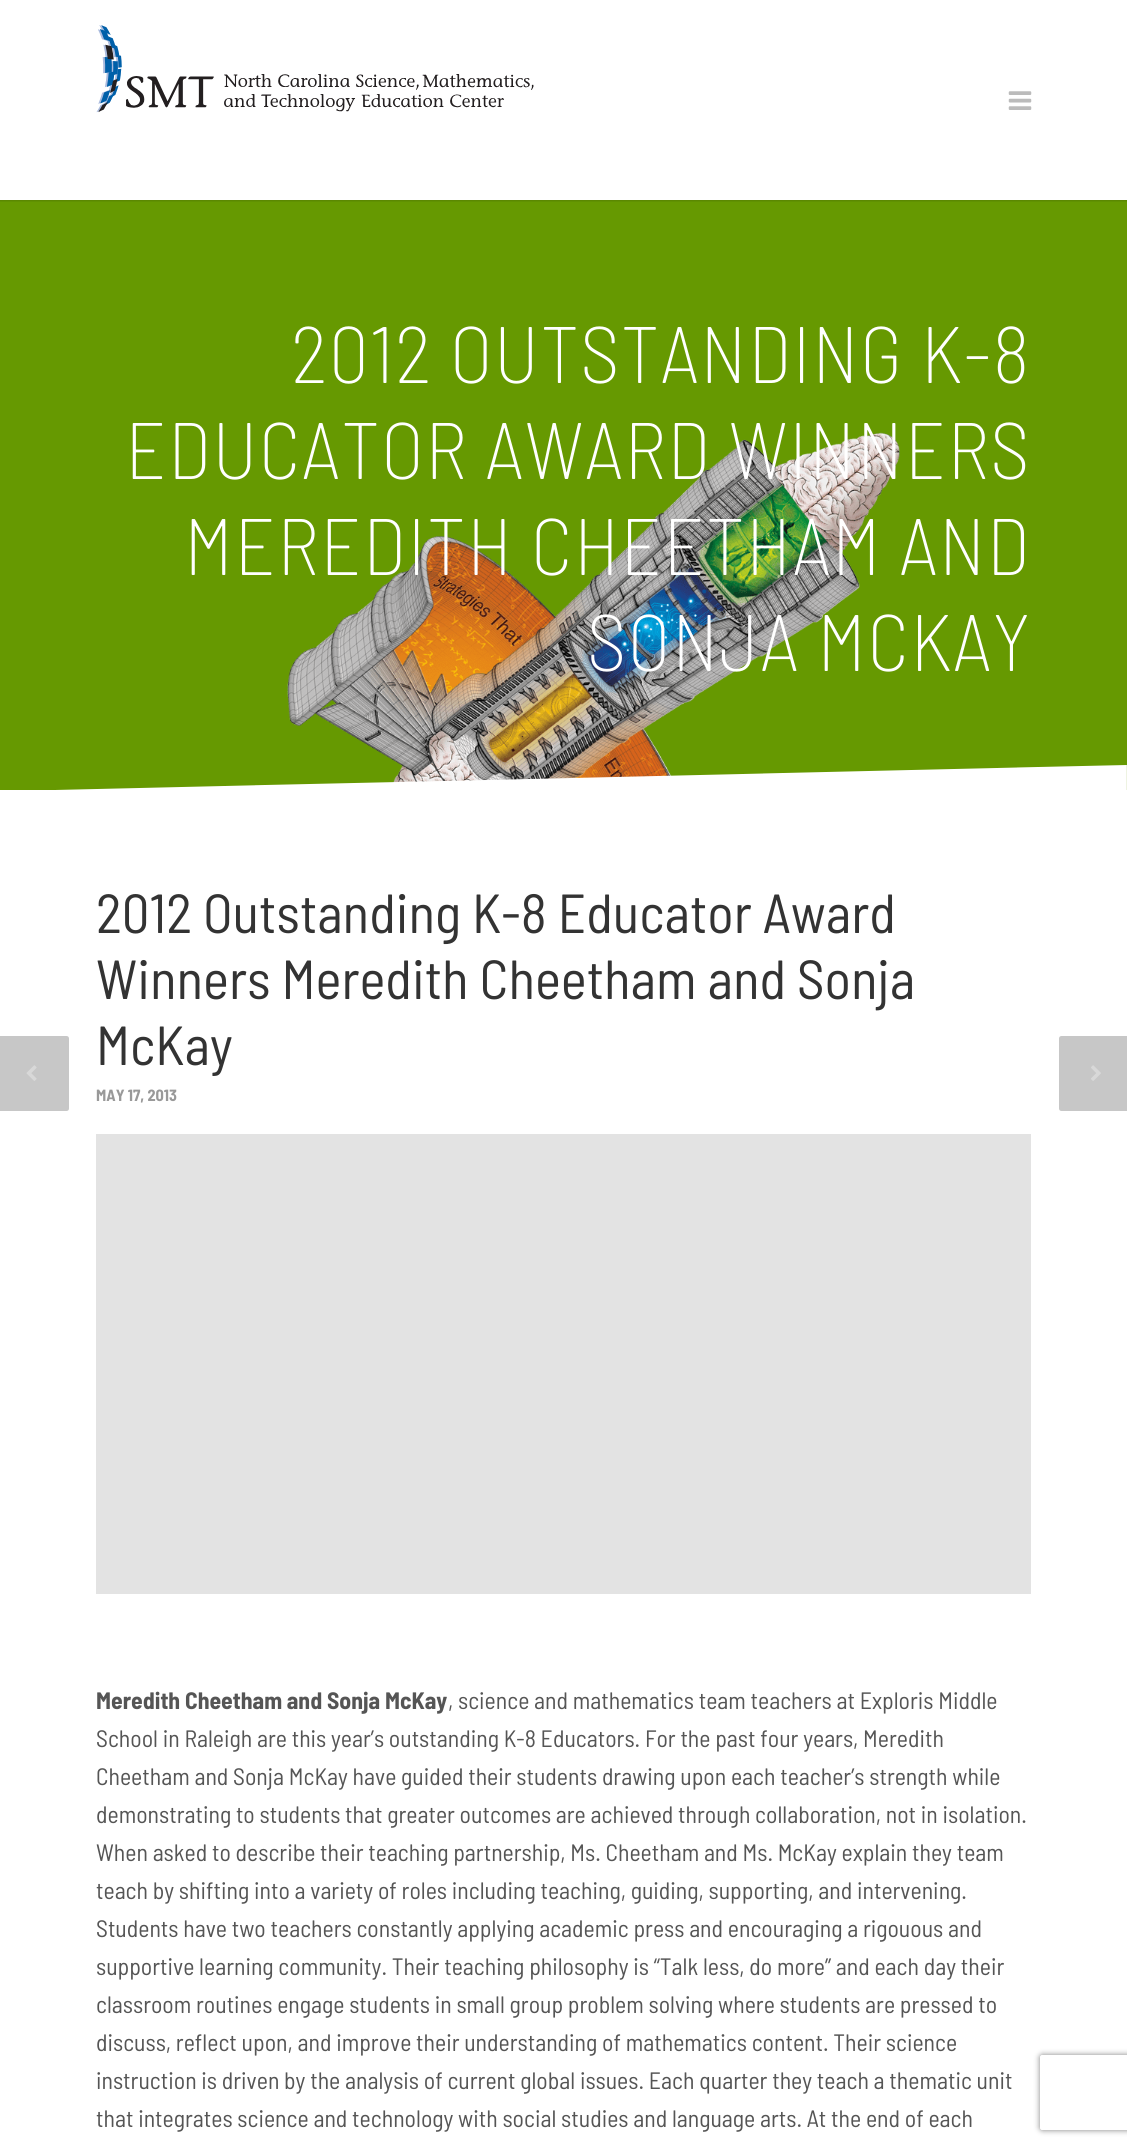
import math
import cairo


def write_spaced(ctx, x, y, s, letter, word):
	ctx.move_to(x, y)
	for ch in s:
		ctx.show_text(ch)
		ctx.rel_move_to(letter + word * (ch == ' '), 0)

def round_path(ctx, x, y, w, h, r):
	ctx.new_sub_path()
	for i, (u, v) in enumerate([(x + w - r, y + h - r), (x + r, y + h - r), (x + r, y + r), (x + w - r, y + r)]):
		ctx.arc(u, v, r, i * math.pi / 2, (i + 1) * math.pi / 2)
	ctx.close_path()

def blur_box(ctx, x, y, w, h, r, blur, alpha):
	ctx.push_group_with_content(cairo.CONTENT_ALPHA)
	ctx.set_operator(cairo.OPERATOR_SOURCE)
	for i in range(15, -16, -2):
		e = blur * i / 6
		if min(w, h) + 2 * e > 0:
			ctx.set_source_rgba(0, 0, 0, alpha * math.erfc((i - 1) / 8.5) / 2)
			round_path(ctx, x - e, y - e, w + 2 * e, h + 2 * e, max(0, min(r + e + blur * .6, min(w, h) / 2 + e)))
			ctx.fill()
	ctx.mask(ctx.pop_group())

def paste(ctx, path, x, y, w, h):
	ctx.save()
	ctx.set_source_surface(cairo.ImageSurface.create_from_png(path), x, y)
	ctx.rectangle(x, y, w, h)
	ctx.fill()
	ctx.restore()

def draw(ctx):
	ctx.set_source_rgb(1, 1, 1)
	ctx.paint()
	ctx.set_source_rgb(0.4, 0.6, 0.004)
	ctx.rectangle(0, 200, 1127, 590)
	ctx.fill()
	ctx.save()
	ctx.rectangle(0, 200, 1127, 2)
	ctx.clip()
	ctx.set_source_rgb(0, 0, 0)
	blur_box(ctx, -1, -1, 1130, 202, 0, 1, 0.16)
	ctx.restore()
	paste(ctx, 'media/1.png', 96, 25, 438, 88)
	paste(ctx, 'media/2.png', 1008, 91, 24, 19)
	paste(ctx, 'media/3.png', 56, 432, 1071, 358)
	ctx.select_font_face('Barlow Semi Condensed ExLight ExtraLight')
	ctx.set_font_size(80)
	ctx.set_source_rgb(1, 1, 1)
	for x, y, s in [
		(291, 383, '2012 OUTSTANDING K-8'),
		(125, 479, 'EDUCATOR AWARD WINNERS'),
		(184, 575, 'MEREDITH CHEETHAM AND'),
		(587, 671, 'SONJA MCKAY'),
	]:
		write_spaced(ctx, x, y, s, 1.25, 0)
	ctx.select_font_face('Barlow Semi Condensed')
	ctx.set_font_size(55)
	ctx.set_source_rgb(0.2, 0.2, 0.2)
	for x, y, s in [
		(96, 933, '2012 Outstanding K-8 Educator Award'),
		(96, 999, 'Winners Meredith Cheetham and Sonja'),
		(96, 1065, 'McKay'),
	]:
		ctx.move_to(x, y)
		ctx.show_text(s)
	ctx.select_font_face('Barlow Semi Condensed', cairo.FONT_SLANT_NORMAL, cairo.FONT_WEIGHT_BOLD)
	ctx.set_font_size(16.25)
	ctx.set_source_rgb(0.6, 0.6, 0.6)
	ctx.move_to(96, 1101)
	ctx.show_text('MAY 17, 2013')
	ctx.set_source_rgb(0.89, 0.89, 0.89)
	ctx.rectangle(96, 1134, 935, 460)
	ctx.fill()
	ctx.set_font_size(23.75)
	ctx.set_source_rgb(0.333, 0.333, 0.333)
	ctx.move_to(96, 1709)
	ctx.show_text('Meredith Cheetham and Sonja McKay')
	ctx.select_font_face('Barlow Semi Condensed')
	for x, y, s in [
		(448, 1709, ', science and mathematics team teachers at Exploris Middle'),
		(96, 1747, 'School in Raleigh are this year’s outstanding K-8 Educators. For the past four years, Meredith'),
		(96, 1785, 'Cheetham and Sonja McKay have guided their students drawing upon each teacher’s strength while'),
		(96, 1823, 'demonstrating to students that greater outcomes are achieved through collaboration, not in isolation.'),
		(96, 1861, 'When asked to describe their teaching partnership, Ms. Cheetham and Ms. McKay explain they team'),
		(96, 1899, 'teach by shifting into a variety of roles including teaching, guiding, supporting, and intervening.'),
		(96, 1937, 'Students have two teachers constantly applying academic press and encouraging a rigouous and'),
		(96, 1975, 'supportive learning community. Their teaching philosophy is “Talk less, do more” and each day their'),
		(96, 2013, 'classroom routines engage students in small group problem solving where students are pressed to'),
		(96, 2051, 'discuss, reflect upon, and improve their understanding of mathematics content. Their science'),
		(96, 2089, 'instruction is driven by the analysis of current global issues. Each quarter they teach a thematic unit'),
		(96, 2127, 'that integrates science and technology with social studies and language arts. At the end of each'),
	]:
		ctx.move_to(x, y)
		ctx.show_text(s)
	ctx.set_source_rgb(0.78, 0.78, 0.78)
	ctx.new_path()
	ctx.move_to(-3, 1036)
	ctx.line_to(66.5, 1036)
	ctx.curve_to(68, 1036, 69, 1037, 69, 1038.5)
	ctx.line_to(69, 1108.5)
	ctx.curve_to(69, 1110, 68, 1111, 66.5, 1111)
	ctx.line_to(-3, 1111)
	ctx.close_path()
	ctx.fill()
	paste(ctx, 'media/4.png', 26, 1065, 11, 16)
	ctx.new_path()
	ctx.move_to(1061.5, 1036)
	ctx.line_to(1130, 1036)
	ctx.line_to(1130, 1111)
	ctx.line_to(1061.5, 1111)
	ctx.curve_to(1060, 1111, 1059, 1110, 1059, 1108.5)
	ctx.line_to(1059, 1038.5)
	ctx.curve_to(1059, 1037, 1060, 1036, 1061.5, 1036)
	ctx.close_path()
	ctx.fill()
	paste(ctx, 'media/5.png', 1091, 1065, 10, 16)
	ctx.save()
	ctx.set_fill_rule(cairo.FILL_RULE_EVEN_ODD)
	ctx.new_path()
	ctx.move_to(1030, 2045)
	ctx.line_to(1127, 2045)
	ctx.line_to(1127, 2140)
	ctx.line_to(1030, 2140)
	ctx.close_path()
	ctx.move_to(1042.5, 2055)
	ctx.line_to(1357.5, 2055)
	ctx.curve_to(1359, 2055, 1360, 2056, 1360, 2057.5)
	ctx.line_to(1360, 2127.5)
	ctx.curve_to(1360, 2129, 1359, 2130, 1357.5, 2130)
	ctx.line_to(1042.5, 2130)
	ctx.curve_to(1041, 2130, 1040, 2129, 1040, 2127.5)
	ctx.line_to(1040, 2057.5)
	ctx.curve_to(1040, 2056, 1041, 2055, 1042.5, 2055)
	ctx.close_path()
	ctx.clip()
	ctx.set_source_rgb(0.502, 0.502, 0.502)
	blur_box(ctx, 1040, 2055, 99, 75, 2.5, 3, 1)
	ctx.restore()


surface = cairo.ImageSurface(cairo.FORMAT_RGB24, 1127, 2147)
ctx = cairo.Context(surface)
options = cairo.FontOptions()
options.set_hint_metrics(cairo.HINT_METRICS_OFF)
options.set_hint_style(cairo.HINT_STYLE_NONE)
ctx.set_font_options(options)
ctx.set_miter_limit(4)
draw(ctx)
surface.write_to_png('image.png')
